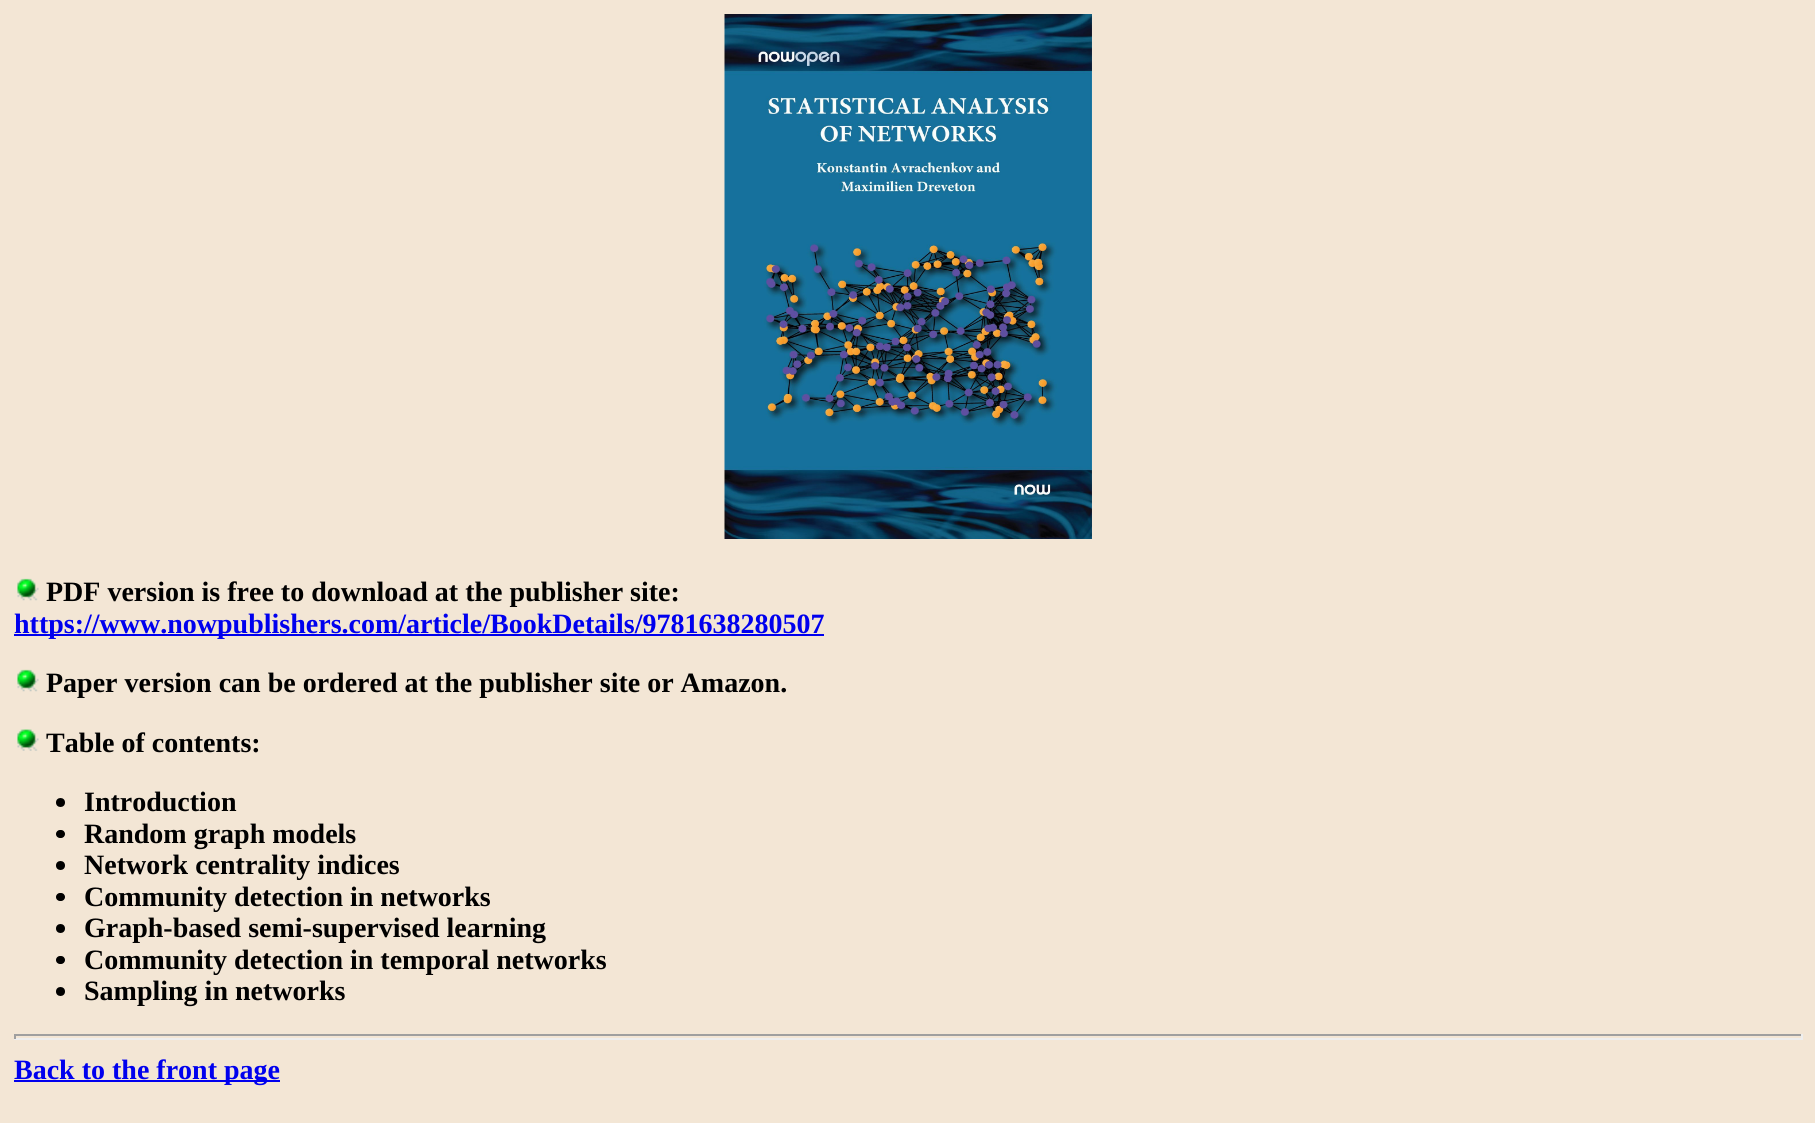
import math
import cairo


def round_path(ctx, x, y, w, h, r):
	ctx.new_sub_path()
	for i, (u, v) in enumerate([(x + w - r, y + h - r), (x + r, y + h - r), (x + r, y + r), (x + w - r, y + r)]):
		ctx.arc(u, v, r, i * math.pi / 2, (i + 1) * math.pi / 2)
	ctx.close_path()

def paste(ctx, path, x, y, w, h):
	ctx.save()
	ctx.set_source_surface(cairo.ImageSurface.create_from_png(path), x, y)
	ctx.rectangle(x, y, w, h)
	ctx.fill()
	ctx.restore()

def draw(ctx):
	ctx.set_source_rgb(0.953, 0.902, 0.835)
	ctx.paint()
	paste(ctx, 'media/1.png', 724, 14, 368, 525)
	paste(ctx, 'media/2.png', 17, 578, 22, 23)
	ctx.select_font_face('Liberation Serif', cairo.FONT_SLANT_NORMAL, cairo.FONT_WEIGHT_BOLD)
	ctx.set_font_size(28)
	ctx.set_source_rgb(0, 0, 0)
	ctx.move_to(46, 601)
	ctx.show_text('PDF version is free to download at the publisher site:')
	ctx.set_source_rgb(0, 0, 0.933)
	ctx.rectangle(14, 634, 810, 2)
	ctx.fill()
	ctx.move_to(14, 633)
	ctx.show_text('https://www.nowpublishers.com/article/BookDetails/9781638280507')
	paste(ctx, 'media/2.png', 17, 669, 22, 23)
	ctx.set_source_rgb(0, 0, 0)
	ctx.move_to(46, 692)
	ctx.show_text('Paper version can be ordered at the publisher site or Amazon.')
	paste(ctx, 'media/3.png', 17, 729, 22, 22)
	ctx.move_to(46, 752)
	ctx.show_text('Table of contents:')
	ctx.new_path()
	ctx.arc(60.5, 802.5, 4.5, 0, 2 * math.pi)
	ctx.fill()
	ctx.move_to(84, 811)
	ctx.show_text('Introduction')
	round_path(ctx, 56, 830, 9, 8, 4)
	ctx.fill()
	ctx.move_to(84, 843)
	ctx.show_text('Random graph models')
	ctx.new_path()
	ctx.arc(60.5, 865.5, 4.5, 0, 2 * math.pi)
	ctx.fill()
	ctx.move_to(84, 874)
	ctx.show_text('Network centrality indices')
	round_path(ctx, 56, 893, 9, 8, 4)
	ctx.fill()
	ctx.move_to(84, 906)
	ctx.show_text('Community detection in networks')
	ctx.new_path()
	ctx.arc(60.5, 928.5, 4.5, 0, 2 * math.pi)
	ctx.fill()
	ctx.move_to(84, 937)
	ctx.show_text('Graph-based semi-supervised learning')
	round_path(ctx, 56, 956, 9, 8, 4)
	ctx.fill()
	ctx.move_to(84, 969)
	ctx.show_text('Community detection in temporal networks')
	ctx.new_path()
	ctx.arc(60.5, 991.5, 4.5, 0, 2 * math.pi)
	ctx.fill()
	ctx.move_to(84, 1000)
	ctx.show_text('Sampling in networks')
	ctx.set_source_rgb(0.624, 0.624, 0.624)
	ctx.rectangle(14, 1034, 1789, 2)
	ctx.fill()
	ctx.set_source_rgb(0.933, 0.933, 0.933)
	ctx.rectangle(1801, 1034, 2, 5)
	ctx.rectangle(14, 1038, 1789, 2)
	ctx.fill()
	ctx.set_source_rgb(0.624, 0.624, 0.624)
	ctx.rectangle(14, 1034, 2, 5)
	ctx.fill()
	ctx.set_source_rgb(0, 0, 0.933)
	ctx.rectangle(14, 1080, 266, 2)
	ctx.fill()
	ctx.move_to(14, 1079)
	ctx.show_text('Back to the front page')


surface = cairo.ImageSurface(cairo.FORMAT_RGB24, 1815, 1123)
ctx = cairo.Context(surface)
options = cairo.FontOptions()
options.set_hint_metrics(cairo.HINT_METRICS_OFF)
options.set_hint_style(cairo.HINT_STYLE_NONE)
ctx.set_font_options(options)
ctx.set_miter_limit(4)
draw(ctx)
surface.write_to_png('image.png')
